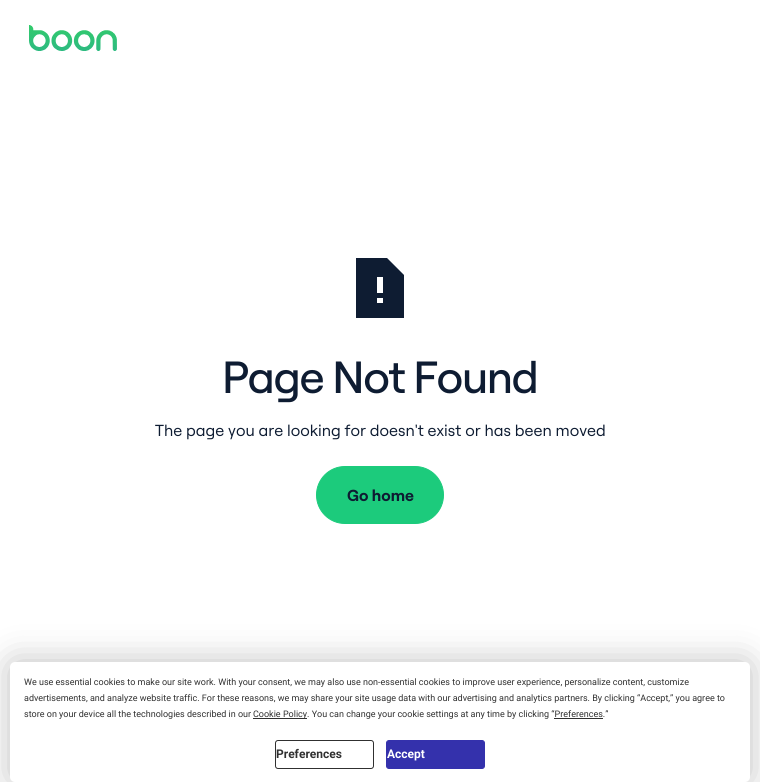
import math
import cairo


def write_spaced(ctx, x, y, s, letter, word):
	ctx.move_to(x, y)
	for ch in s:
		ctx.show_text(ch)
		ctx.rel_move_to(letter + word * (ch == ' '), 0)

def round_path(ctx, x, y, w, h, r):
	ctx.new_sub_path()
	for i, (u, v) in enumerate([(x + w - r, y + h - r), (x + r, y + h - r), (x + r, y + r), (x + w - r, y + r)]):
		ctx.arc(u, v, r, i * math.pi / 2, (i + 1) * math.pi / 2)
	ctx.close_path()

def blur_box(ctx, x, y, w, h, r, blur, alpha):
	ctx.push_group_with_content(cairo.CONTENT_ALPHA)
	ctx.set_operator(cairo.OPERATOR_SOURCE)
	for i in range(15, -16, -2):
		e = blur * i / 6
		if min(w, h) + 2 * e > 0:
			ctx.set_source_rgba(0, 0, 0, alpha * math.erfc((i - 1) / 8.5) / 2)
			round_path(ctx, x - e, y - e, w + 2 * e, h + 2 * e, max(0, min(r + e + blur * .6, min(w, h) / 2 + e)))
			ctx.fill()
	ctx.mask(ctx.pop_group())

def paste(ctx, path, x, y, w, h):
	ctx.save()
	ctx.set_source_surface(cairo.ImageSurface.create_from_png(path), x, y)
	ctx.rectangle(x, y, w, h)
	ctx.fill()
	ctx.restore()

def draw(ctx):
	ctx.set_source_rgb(1, 1, 1)
	ctx.paint()
	paste(ctx, 'media/1.png', 29, 25, 88, 26)
	ctx.set_source_rgb(0.055, 0.11, 0.196)
	ctx.set_fill_rule(cairo.FILL_RULE_EVEN_ODD)
	ctx.new_path()
	ctx.move_to(356, 258)
	ctx.line_to(387, 258)
	ctx.line_to(404, 275)
	ctx.line_to(404, 318)
	ctx.line_to(356, 318)
	ctx.close_path()
	ctx.move_to(377, 277)
	ctx.line_to(383, 277)
	ctx.line_to(383, 293)
	ctx.line_to(377, 293)
	ctx.close_path()
	ctx.move_to(377, 298)
	ctx.line_to(383, 298)
	ctx.line_to(383, 303)
	ctx.line_to(377, 303)
	ctx.close_path()
	ctx.fill()
	ctx.select_font_face('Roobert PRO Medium')
	ctx.set_font_size(45)
	write_spaced(ctx, 222, 393, 'Page Not Found', -1.4, 0)
	ctx.select_font_face('Roobert PRO')
	ctx.set_font_size(16)
	ctx.move_to(155, 436)
	ctx.show_text('The page you are looking for doesn\'t exist or has been moved')
	ctx.set_source_rgb(0.11, 0.796, 0.486)
	round_path(ctx, 316.5, 466.5, 127, 57, 28.5)
	ctx.fill_preserve()
	ctx.set_line_width(1)
	ctx.stroke()
	ctx.select_font_face('Roobert PRO', cairo.FONT_SLANT_NORMAL, cairo.FONT_WEIGHT_BOLD)
	ctx.set_source_rgb(0.055, 0.11, 0.196)
	ctx.move_to(347, 501)
	ctx.show_text('Go home')
	ctx.set_source_rgb(0, 0, 0)
	blur_box(ctx, 10, 662, 740, 120, 5, 17.5, 0.25)
	ctx.set_source_rgb(1, 1, 1)
	round_path(ctx, 10, 662, 740, 120, 5)
	ctx.fill()
	ctx.select_font_face('Roboto')
	ctx.set_font_size(9)
	ctx.set_source_rgb(0.188, 0.188, 0.188)
	for x, y, s in [
		(24, 685, 'We use essential cookies to make our site work. With your consent, we may also use non-essential cookies to improve user experience, personalize content, customize'),
		(24, 701, 'advertisements, and analyze website traffic. For these reasons, we may share your site usage data with our advertising and analytics partners. By clicking “Accept,” you agree to'),
		(24, 717, 'store on your device all the technologies described in our'),
	]:
		ctx.move_to(x, y)
		ctx.show_text(s)
	ctx.rectangle(253, 718, 54, 1)
	ctx.fill()
	ctx.move_to(253, 717)
	ctx.show_text('Cookie Policy. You can change your cookie settings at any time by clicking “Preferences.”')
	ctx.rectangle(554, 718, 49, 1)
	ctx.fill()
	round_path(ctx, 275.5, 740.5, 98, 28, 2.5)
	ctx.stroke()
	ctx.select_font_face('Roboto', cairo.FONT_SLANT_NORMAL, cairo.FONT_WEIGHT_BOLD)
	ctx.set_font_size(12)
	ctx.move_to(276, 758)
	ctx.show_text('Preferences')
	ctx.set_source_rgb(0.204, 0.192, 0.675)
	round_path(ctx, 386.5, 740.5, 98, 28, 2.5)
	ctx.fill_preserve()
	ctx.stroke()
	ctx.set_source_rgb(1, 1, 1)
	ctx.move_to(387, 758)
	ctx.show_text('Accept')


surface = cairo.ImageSurface(cairo.FORMAT_RGB24, 760, 782)
ctx = cairo.Context(surface)
options = cairo.FontOptions()
options.set_hint_metrics(cairo.HINT_METRICS_OFF)
options.set_hint_style(cairo.HINT_STYLE_NONE)
ctx.set_font_options(options)
ctx.set_miter_limit(4)
draw(ctx)
surface.write_to_png('image.png')
